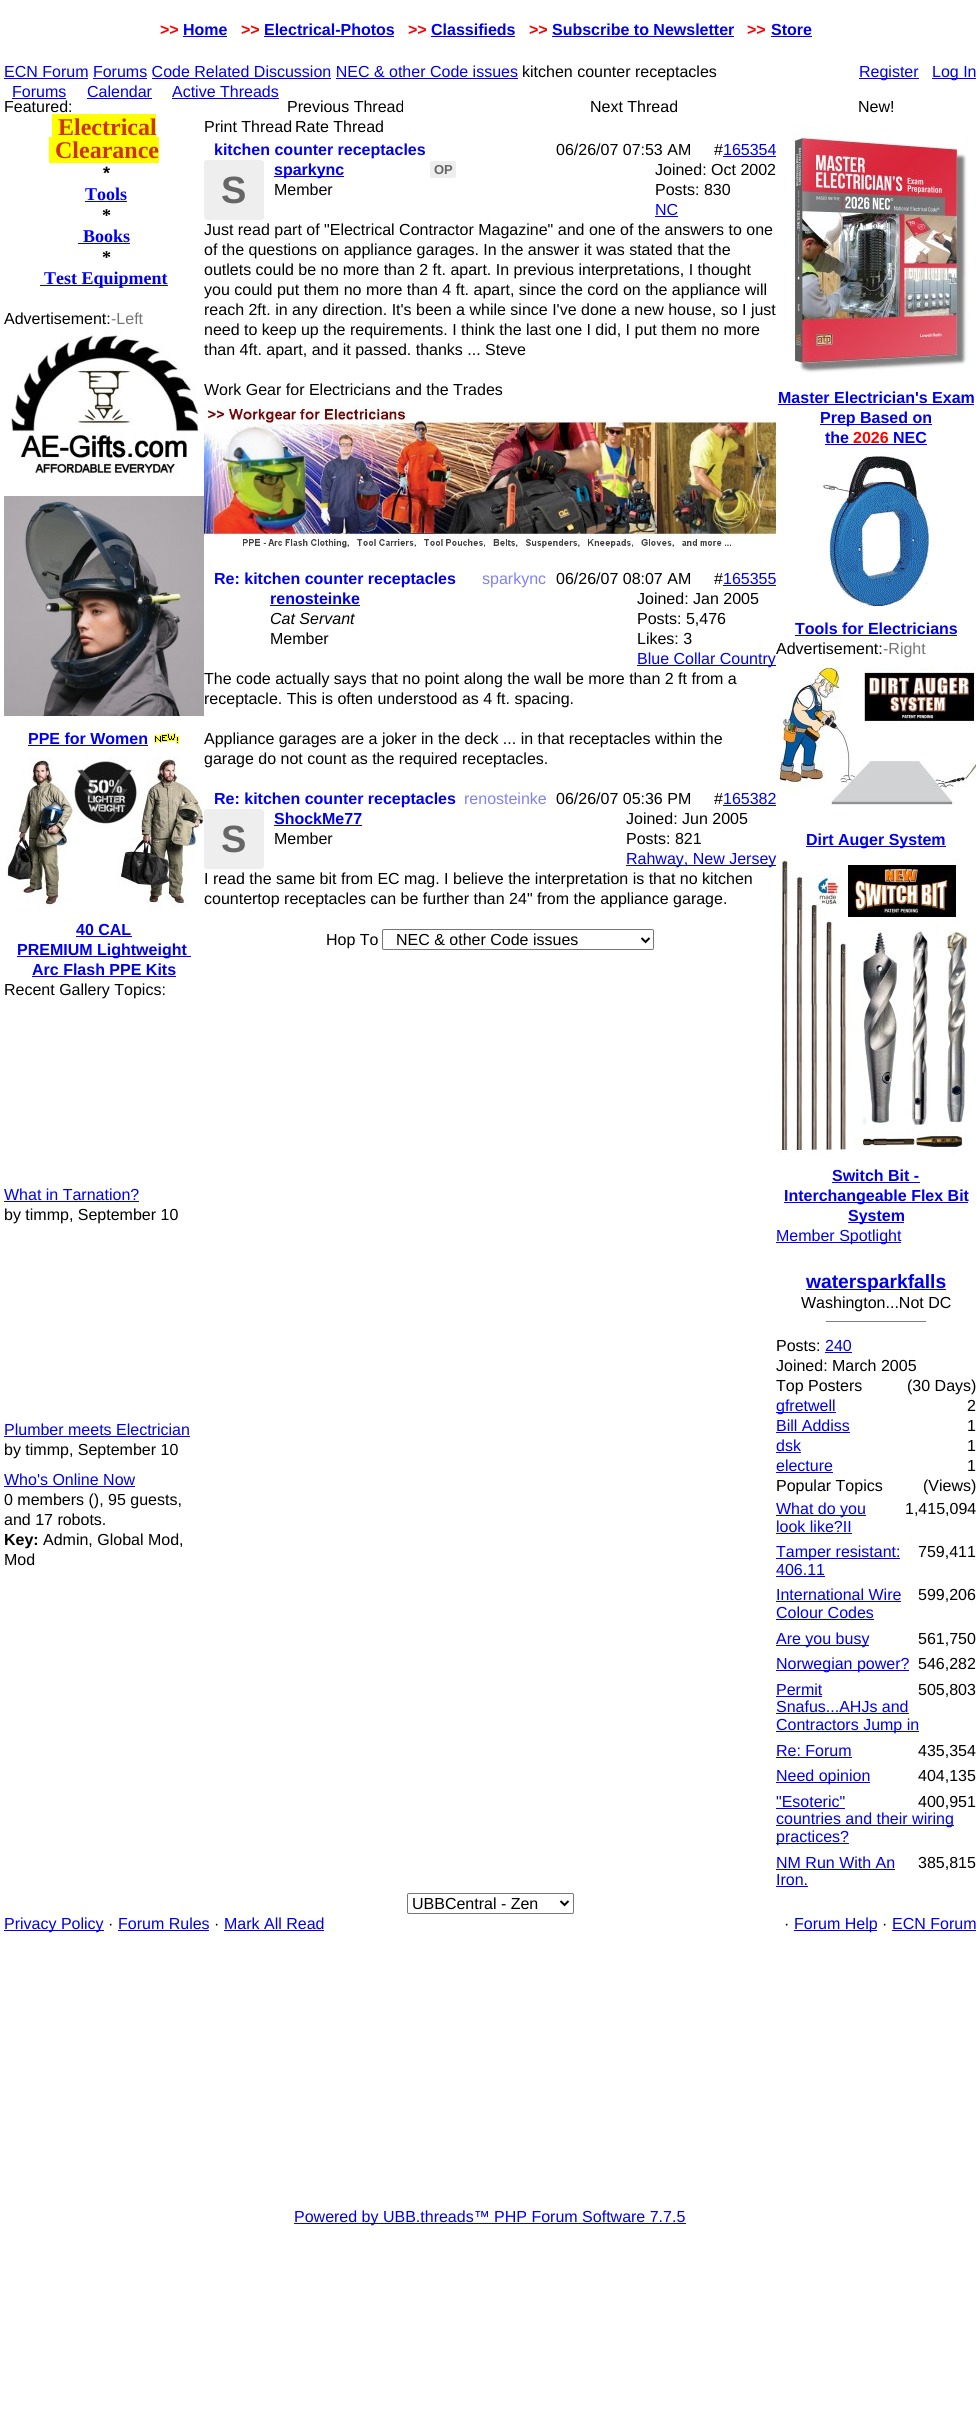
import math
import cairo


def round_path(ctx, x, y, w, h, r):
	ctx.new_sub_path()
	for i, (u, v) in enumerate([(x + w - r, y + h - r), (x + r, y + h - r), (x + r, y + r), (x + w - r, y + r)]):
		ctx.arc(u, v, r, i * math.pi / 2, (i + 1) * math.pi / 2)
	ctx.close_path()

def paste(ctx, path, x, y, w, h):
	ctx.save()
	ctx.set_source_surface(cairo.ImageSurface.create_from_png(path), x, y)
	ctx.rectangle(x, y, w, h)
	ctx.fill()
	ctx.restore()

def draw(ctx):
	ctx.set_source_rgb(1, 1, 1)
	ctx.paint()
	ctx.select_font_face('Liberation Sans', cairo.FONT_SLANT_NORMAL, cairo.FONT_WEIGHT_BOLD)
	ctx.set_font_size(16)
	ctx.set_source_rgb(1, 0, 0)
	ctx.move_to(160, 35)
	ctx.show_text('>>')
	ctx.set_source_rgb(0, 0, 0.933)
	ctx.move_to(183, 35)
	ctx.show_text('Home')
	ctx.rectangle(183, 36, 44, 1)
	ctx.fill()
	ctx.set_source_rgb(1, 0, 0)
	ctx.move_to(241, 35)
	ctx.show_text('>>')
	ctx.set_source_rgb(0, 0, 0.933)
	ctx.move_to(264, 35)
	ctx.show_text('Electrical-Photos')
	ctx.rectangle(264, 36, 130, 1)
	ctx.fill()
	ctx.set_source_rgb(1, 0, 0)
	ctx.move_to(408, 35)
	ctx.show_text('>>')
	ctx.set_source_rgb(0, 0, 0.933)
	ctx.move_to(431, 35)
	ctx.show_text('Classifieds')
	ctx.rectangle(431, 36, 84, 1)
	ctx.fill()
	ctx.set_source_rgb(1, 0, 0)
	ctx.move_to(529, 35)
	ctx.show_text('>>')
	ctx.set_source_rgb(0, 0, 0.933)
	ctx.move_to(552, 35)
	ctx.show_text('Subscribe to Newsletter')
	ctx.rectangle(552, 36, 182, 1)
	ctx.fill()
	ctx.set_source_rgb(1, 0, 0)
	ctx.move_to(747, 35)
	ctx.show_text('>>')
	ctx.set_source_rgb(0, 0, 0.933)
	ctx.move_to(771, 35)
	ctx.show_text('Store')
	ctx.rectangle(771, 36, 41, 1)
	ctx.fill()
	ctx.select_font_face('Liberation Sans')
	ctx.move_to(4, 77)
	ctx.show_text('ECN Forum Forums Code Related Discussion NEC & other Code issues')
	ctx.rectangle(4, 78, 84, 1)
	ctx.rectangle(93, 78, 54, 1)
	ctx.rectangle(152, 78, 179, 1)
	ctx.rectangle(336, 78, 182, 1)
	ctx.fill()
	ctx.set_source_rgb(0, 0, 0)
	ctx.move_to(522, 77)
	ctx.show_text('kitchen counter receptacles')
	ctx.set_source_rgb(0, 0, 0.933)
	ctx.rectangle(859, 78, 60, 1)
	ctx.fill()
	ctx.move_to(859, 77)
	ctx.show_text('Register')
	ctx.rectangle(932, 78, 44, 1)
	ctx.fill()
	ctx.move_to(932, 77)
	ctx.show_text('Log In')
	ctx.move_to(12, 97)
	ctx.show_text('Forums')
	ctx.rectangle(12, 98, 54, 1)
	ctx.fill()
	ctx.move_to(87, 97)
	ctx.show_text('Calendar')
	ctx.rectangle(87, 98, 65, 1)
	ctx.fill()
	ctx.move_to(172, 97)
	ctx.show_text('Active Threads')
	ctx.rectangle(172, 98, 107, 1)
	ctx.fill()
	ctx.set_source_rgb(0, 0, 0)
	ctx.move_to(4, 112)
	ctx.show_text('Featured:')
	ctx.set_source_rgb(1, 1, 0)
	ctx.rectangle(52, 114, 104, 23)
	ctx.fill()
	ctx.select_font_face('Liberation Serif', cairo.FONT_SLANT_NORMAL, cairo.FONT_WEIGHT_BOLD)
	ctx.set_font_size(24)
	ctx.set_source_rgb(0.8, 0.2, 0)
	ctx.move_to(58, 135)
	ctx.show_text('Electrical')
	ctx.set_source_rgb(1, 1, 0)
	ctx.rectangle(49, 137, 110, 26)
	ctx.fill()
	ctx.set_source_rgb(0.8, 0.2, 0)
	ctx.move_to(55, 158)
	ctx.show_text('Clearance')
	ctx.select_font_face('Liberation Sans', cairo.FONT_SLANT_NORMAL, cairo.FONT_WEIGHT_BOLD)
	ctx.set_font_size(18)
	ctx.set_source_rgb(0, 0, 0)
	ctx.move_to(103, 179)
	ctx.show_text('*')
	ctx.select_font_face('Liberation Serif', cairo.FONT_SLANT_NORMAL, cairo.FONT_WEIGHT_BOLD)
	ctx.set_source_rgb(0, 0, 0.933)
	ctx.move_to(85, 200)
	ctx.show_text('Tools')
	ctx.rectangle(85, 201, 42, 1)
	ctx.fill()
	ctx.set_source_rgb(0, 0, 0)
	ctx.move_to(102, 221)
	ctx.show_text('*')
	ctx.set_source_rgb(0, 0, 0.933)
	ctx.move_to(83, 242)
	ctx.show_text('Books')
	ctx.rectangle(78, 243, 52, 1)
	ctx.fill()
	ctx.set_source_rgb(0, 0, 0)
	ctx.move_to(102, 263)
	ctx.show_text('*')
	ctx.set_source_rgb(0, 0, 0.933)
	ctx.rectangle(40, 285, 128, 1)
	ctx.fill()
	ctx.move_to(44, 284)
	ctx.show_text('Test Equipment')
	ctx.select_font_face('Liberation Sans')
	ctx.set_font_size(16)
	ctx.set_source_rgb(0, 0, 0)
	ctx.move_to(4, 324)
	ctx.show_text('Advertisement:')
	ctx.set_source_rgb(0.459, 0.459, 0.459)
	ctx.move_to(111, 324)
	ctx.show_text('-Left')
	paste(ctx, 'media/1.png', 10, 330, 194, 144)
	paste(ctx, 'media/2.png', 4, 496, 200, 220)
	ctx.select_font_face('Liberation Sans', cairo.FONT_SLANT_NORMAL, cairo.FONT_WEIGHT_BOLD)
	ctx.set_source_rgb(0, 0, 0.933)
	ctx.move_to(28, 744)
	ctx.show_text('PPE for Women')
	ctx.rectangle(28, 745, 120, 1)
	ctx.fill()
	paste(ctx, 'media/3.png', 154, 733, 25, 11)
	paste(ctx, 'media/4.png', 4, 757, 200, 150)
	ctx.move_to(76, 935)
	ctx.show_text('40 CAL')
	ctx.rectangle(76, 936, 56, 1)
	ctx.fill()
	ctx.rectangle(17, 956, 174, 1)
	ctx.fill()
	ctx.move_to(17, 955)
	ctx.show_text('PREMIUM Lightweight')
	ctx.move_to(32, 975)
	ctx.show_text('Arc Flash PPE Kits')
	ctx.rectangle(32, 976, 144, 1)
	ctx.fill()
	ctx.select_font_face('Liberation Sans')
	ctx.set_source_rgb(0, 0, 0)
	ctx.move_to(4, 995)
	ctx.show_text('Recent Gallery Topics:')
	ctx.set_source_rgb(0, 0, 0.933)
	ctx.move_to(4, 1200)
	ctx.show_text('What in Tarnation?')
	ctx.rectangle(4, 1201, 135, 1)
	ctx.fill()
	ctx.set_source_rgb(0, 0, 0)
	ctx.move_to(4, 1220)
	ctx.show_text('by timmp, September 10')
	ctx.set_source_rgb(0, 0, 0.933)
	ctx.move_to(4, 1435)
	ctx.show_text('Plumber meets Electrician')
	ctx.rectangle(4, 1436, 186, 1)
	ctx.fill()
	ctx.set_source_rgb(0, 0, 0)
	ctx.move_to(4, 1455)
	ctx.show_text('by timmp, September 10')
	ctx.set_source_rgb(0, 0, 0.933)
	ctx.move_to(4, 1485)
	ctx.show_text('Who\'s Online Now')
	ctx.rectangle(4, 1486, 131, 1)
	ctx.fill()
	ctx.set_source_rgb(0, 0, 0)
	ctx.move_to(4, 1505)
	ctx.show_text('0 members (), 95 guests,')
	ctx.move_to(4, 1525)
	ctx.show_text('and 17 robots.')
	ctx.select_font_face('Liberation Sans', cairo.FONT_SLANT_NORMAL, cairo.FONT_WEIGHT_BOLD)
	ctx.move_to(4, 1545)
	ctx.show_text('Key:')
	ctx.select_font_face('Liberation Sans')
	for x, y, s in [
		(43, 1545, 'Admin, Global Mod,'),
		(4, 1565, 'Mod'),
		(287, 112, 'Previous Thread'),
		(590, 112, 'Next Thread'),
		(204, 132, 'Print Thread'),
		(295, 132, 'Rate Thread'),
	]:
		ctx.move_to(x, y)
		ctx.show_text(s)
	ctx.select_font_face('Liberation Sans', cairo.FONT_SLANT_NORMAL, cairo.FONT_WEIGHT_BOLD)
	ctx.set_source_rgb(0, 0, 0.933)
	ctx.move_to(214, 155)
	ctx.show_text('kitchen counter receptacles')
	ctx.select_font_face('Liberation Sans')
	ctx.set_source_rgb(0, 0, 0)
	ctx.move_to(556, 155)
	ctx.show_text('06/26/07 07:53 AM')
	ctx.move_to(714, 155)
	ctx.show_text('#')
	ctx.set_source_rgb(0, 0, 0.933)
	ctx.move_to(723, 155)
	ctx.show_text('165354')
	ctx.rectangle(723, 156, 53, 1)
	ctx.fill()
	ctx.set_source_rgb(0.933, 0.933, 0.933)
	round_path(ctx, 204, 160, 60, 60, 3)
	ctx.fill()
	ctx.select_font_face('Liberation Sans', cairo.FONT_SLANT_NORMAL, cairo.FONT_WEIGHT_BOLD)
	ctx.set_font_size(38)
	ctx.set_source_rgb(0.4, 0.4, 0.4)
	ctx.move_to(221, 203)
	ctx.show_text('S')
	ctx.set_source_rgb(0, 0, 0.933)
	ctx.rectangle(274, 176, 70, 1)
	ctx.fill()
	ctx.set_font_size(16)
	ctx.move_to(274, 175)
	ctx.show_text('sparkync')
	ctx.set_source_rgb(0.933, 0.933, 0.933)
	round_path(ctx, 430, 161, 26, 17, 2)
	ctx.fill()
	ctx.set_font_size(13)
	ctx.set_source_rgb(0.4, 0.4, 0.4)
	ctx.move_to(434, 174)
	ctx.show_text('OP')
	ctx.select_font_face('Liberation Sans')
	ctx.set_font_size(16)
	ctx.set_source_rgb(0, 0, 0)
	ctx.move_to(655, 175)
	ctx.show_text('Joined: Oct 2002')
	ctx.move_to(655, 195)
	ctx.show_text('Posts: 830')
	ctx.set_source_rgb(0, 0, 0.933)
	ctx.move_to(655, 215)
	ctx.show_text('NC')
	ctx.rectangle(655, 216, 23, 1)
	ctx.fill()
	ctx.set_source_rgb(0, 0, 0)
	for x, y, s in [
		(274, 195, 'Member'),
		(204, 235, 'Just read part of "Electrical Contractor Magazine" and one of the answers to one'),
		(204, 255, 'of the questions on appliance garages. In the answer it was stated that the'),
		(204, 275, 'outlets could be no more than 2 ft. apart. In previous interpretations, I thought'),
		(204, 295, 'you could put them no more than 4 ft. apart, since the cord on the appliance will'),
		(204, 315, 'reach 2ft. in any direction. It\'s been a while since I\'ve done a new house, so I just'),
		(204, 335, 'need to keep up the requirements. I think the last one I did, I put them no more'),
		(204, 355, 'than 4ft. apart, and it passed. thanks ... Steve'),
		(204, 395, 'Work Gear for Electricians and the Trades'),
	]:
		ctx.move_to(x, y)
		ctx.show_text(s)
	paste(ctx, 'media/5.png', 204, 400, 572, 151)
	ctx.select_font_face('Liberation Sans', cairo.FONT_SLANT_NORMAL, cairo.FONT_WEIGHT_BOLD)
	ctx.set_source_rgb(0, 0, 0.933)
	ctx.move_to(214, 584)
	ctx.show_text('Re: kitchen counter receptacles')
	ctx.select_font_face('Liberation Sans')
	ctx.set_source_rgb(0.502, 0.502, 0.969)
	ctx.move_to(482, 584)
	ctx.show_text('sparkync')
	ctx.set_source_rgb(0, 0, 0)
	ctx.move_to(556, 584)
	ctx.show_text('06/26/07 08:07 AM')
	ctx.move_to(714, 584)
	ctx.show_text('#')
	ctx.set_source_rgb(0, 0, 0.933)
	ctx.move_to(723, 584)
	ctx.show_text('165355')
	ctx.rectangle(723, 585, 53, 1)
	ctx.fill()
	ctx.select_font_face('Liberation Sans', cairo.FONT_SLANT_NORMAL, cairo.FONT_WEIGHT_BOLD)
	ctx.move_to(270, 604)
	ctx.show_text('renosteinke')
	ctx.rectangle(270, 605, 90, 1)
	ctx.fill()
	ctx.select_font_face('Liberation Sans')
	ctx.set_source_rgb(0, 0, 0)
	for x, y, s in [
		(637, 604, 'Joined: Jan 2005'),
		(637, 624, 'Posts: 5,476'),
		(637, 644, 'Likes: 3'),
	]:
		ctx.move_to(x, y)
		ctx.show_text(s)
	ctx.set_source_rgb(0, 0, 0.933)
	ctx.rectangle(637, 665, 139, 1)
	ctx.fill()
	ctx.move_to(637, 664)
	ctx.show_text('Blue Collar Country')
	ctx.select_font_face('Liberation Sans', cairo.FONT_SLANT_ITALIC)
	ctx.set_source_rgb(0, 0, 0)
	ctx.move_to(270, 624)
	ctx.show_text('Cat Servant')
	ctx.select_font_face('Liberation Sans')
	for x, y, s in [
		(270, 644, 'Member'),
		(204, 684, 'The code actually says that no point along the wall be more than 2 ft from a'),
		(204, 704, 'receptacle. This is often understood as 4 ft. spacing.'),
		(204, 744, 'Appliance garages are a joker in the deck ... in that receptacles within the'),
		(204, 764, 'garage do not count as the required receptacles.'),
	]:
		ctx.move_to(x, y)
		ctx.show_text(s)
	ctx.select_font_face('Liberation Sans', cairo.FONT_SLANT_NORMAL, cairo.FONT_WEIGHT_BOLD)
	ctx.set_source_rgb(0, 0, 0.933)
	ctx.move_to(214, 804)
	ctx.show_text('Re: kitchen counter receptacles')
	ctx.select_font_face('Liberation Sans')
	ctx.set_source_rgb(0.502, 0.502, 0.969)
	ctx.move_to(464, 804)
	ctx.show_text('renosteinke')
	ctx.set_source_rgb(0, 0, 0)
	ctx.move_to(556, 804)
	ctx.show_text('06/26/07 05:36 PM')
	ctx.move_to(714, 804)
	ctx.show_text('#')
	ctx.set_source_rgb(0, 0, 0.933)
	ctx.move_to(723, 804)
	ctx.show_text('165382')
	ctx.rectangle(723, 805, 53, 1)
	ctx.fill()
	ctx.set_source_rgb(0.933, 0.933, 0.933)
	round_path(ctx, 204, 809, 60, 60, 3)
	ctx.fill()
	ctx.select_font_face('Liberation Sans', cairo.FONT_SLANT_NORMAL, cairo.FONT_WEIGHT_BOLD)
	ctx.set_font_size(38)
	ctx.set_source_rgb(0.4, 0.4, 0.4)
	ctx.move_to(221, 852)
	ctx.show_text('S')
	ctx.set_font_size(16)
	ctx.set_source_rgb(0, 0, 0.933)
	ctx.move_to(274, 824)
	ctx.show_text('ShockMe77')
	ctx.rectangle(274, 825, 88, 1)
	ctx.fill()
	ctx.select_font_face('Liberation Sans')
	ctx.set_source_rgb(0, 0, 0)
	ctx.move_to(626, 824)
	ctx.show_text('Joined: Jun 2005')
	ctx.move_to(626, 844)
	ctx.show_text('Posts: 821')
	ctx.set_source_rgb(0, 0, 0.933)
	ctx.rectangle(626, 865, 150, 1)
	ctx.fill()
	ctx.move_to(626, 864)
	ctx.show_text('Rahway, New Jersey')
	ctx.set_source_rgb(0, 0, 0)
	for x, y, s in [
		(274, 844, 'Member'),
		(204, 884, 'I read the same bit from EC mag. I believe the interpretation is that no kitchen'),
		(204, 904, 'countertop receptacles can be further than 24" from the appliance garage.'),
		(326, 945, 'Hop To'),
	]:
		ctx.move_to(x, y)
		ctx.show_text(s)
	round_path(ctx, 382.5, 929.5, 271, 20, 1.5)
	ctx.set_source_rgb(0.463, 0.463, 0.463)
	ctx.set_line_width(1)
	ctx.stroke()
	ctx.new_path()
	ctx.move_to(641.5, 938)
	ctx.line_to(645.5, 942)
	ctx.line_to(649.5, 938)
	ctx.set_source_rgb(0, 0, 0)
	ctx.set_line_width(2)
	ctx.stroke()
	ctx.move_to(396, 945)
	ctx.show_text('NEC & other Code issues')
	ctx.move_to(858, 112)
	ctx.show_text('New!')
	paste(ctx, 'media/6.png', 792, 125, 176, 248)
	ctx.select_font_face('Liberation Sans', cairo.FONT_SLANT_NORMAL, cairo.FONT_WEIGHT_BOLD)
	ctx.set_source_rgb(0, 0, 0.933)
	ctx.move_to(778, 403)
	ctx.show_text('Master Electrician\'s Exam')
	ctx.rectangle(778, 404, 196, 1)
	ctx.fill()
	ctx.rectangle(820, 424, 112, 1)
	ctx.fill()
	ctx.move_to(820, 423)
	ctx.show_text('Prep Based on')
	ctx.move_to(825, 443)
	ctx.show_text('the')
	ctx.rectangle(825, 444, 102, 1)
	ctx.fill()
	ctx.set_source_rgb(1, 0, 0)
	ctx.move_to(853, 443)
	ctx.show_text('2026')
	ctx.set_source_rgb(0, 0, 0.933)
	ctx.move_to(893, 443)
	ctx.show_text('NEC')
	paste(ctx, 'media/7.png', 823, 456, 106, 150)
	ctx.move_to(795, 634)
	ctx.show_text('Tools for Electricians')
	ctx.rectangle(795, 635, 162, 1)
	ctx.fill()
	ctx.select_font_face('Liberation Sans')
	ctx.set_source_rgb(0, 0, 0)
	ctx.move_to(776, 654)
	ctx.show_text('Advertisement:')
	ctx.set_source_rgb(0.459, 0.459, 0.459)
	ctx.move_to(883, 654)
	ctx.show_text('-Right')
	paste(ctx, 'media/8.png', 776, 667, 200, 138)
	ctx.set_source_rgb(0, 0, 0.933)
	ctx.rectangle(806, 846, 140, 1)
	ctx.fill()
	ctx.select_font_face('Liberation Sans', cairo.FONT_SLANT_NORMAL, cairo.FONT_WEIGHT_BOLD)
	ctx.move_to(806, 845)
	ctx.show_text('Dirt Auger System')
	paste(ctx, 'media/9.png', 776, 858, 192, 295)
	ctx.move_to(832, 1181)
	ctx.show_text('Switch Bit -')
	ctx.rectangle(832, 1182, 88, 1)
	ctx.fill()
	ctx.rectangle(784, 1202, 184, 1)
	ctx.fill()
	ctx.move_to(784, 1201)
	ctx.show_text('Interchangeable Flex Bit')
	ctx.rectangle(848, 1222, 56, 1)
	ctx.fill()
	ctx.move_to(848, 1221)
	ctx.show_text('System')
	ctx.rectangle(776, 1242, 125, 1)
	ctx.fill()
	ctx.select_font_face('Liberation Sans')
	ctx.move_to(776, 1241)
	ctx.show_text('Member Spotlight')
	ctx.rectangle(806, 1289, 140, 1)
	ctx.fill()
	ctx.select_font_face('Liberation Sans', cairo.FONT_SLANT_NORMAL, cairo.FONT_WEIGHT_BOLD)
	ctx.set_font_size(19.25)
	ctx.move_to(806, 1288)
	ctx.show_text('watersparkfalls')
	ctx.select_font_face('Liberation Sans')
	ctx.set_font_size(16)
	ctx.set_source_rgb(0, 0, 0)
	ctx.move_to(801, 1308)
	ctx.show_text('Washington...Not DC')
	ctx.set_source_rgb(0.502, 0.502, 0.502)
	ctx.rectangle(826, 1321, 100, 1)
	ctx.fill()
	ctx.set_source_rgb(0, 0, 0)
	ctx.move_to(776, 1351)
	ctx.show_text('Posts:')
	ctx.set_source_rgb(0, 0, 0.933)
	ctx.move_to(825, 1351)
	ctx.show_text('240')
	ctx.rectangle(825, 1352, 27, 1)
	ctx.fill()
	ctx.set_source_rgb(0, 0, 0)
	for x, y, s in [
		(776, 1371, 'Joined: March 2005'),
		(776, 1391, 'Top Posters'),
		(907, 1391, '(30 Days)'),
	]:
		ctx.move_to(x, y)
		ctx.show_text(s)
	ctx.set_source_rgb(0, 0, 0.933)
	ctx.rectangle(776, 1412, 60, 1)
	ctx.fill()
	ctx.move_to(776, 1411)
	ctx.show_text('gfretwell')
	ctx.set_source_rgb(0, 0, 0)
	ctx.move_to(967, 1411)
	ctx.show_text('2')
	ctx.set_source_rgb(0, 0, 0.933)
	ctx.move_to(776, 1431)
	ctx.show_text('Bill Addiss')
	ctx.rectangle(776, 1432, 74, 1)
	ctx.fill()
	ctx.set_source_rgb(0, 0, 0)
	ctx.move_to(967, 1431)
	ctx.show_text('1')
	ctx.set_source_rgb(0, 0, 0.933)
	ctx.move_to(776, 1451)
	ctx.show_text('dsk')
	ctx.rectangle(776, 1452, 25, 1)
	ctx.fill()
	ctx.set_source_rgb(0, 0, 0)
	ctx.move_to(967, 1451)
	ctx.show_text('1')
	ctx.set_source_rgb(0, 0, 0.933)
	ctx.move_to(776, 1471)
	ctx.show_text('electure')
	ctx.rectangle(776, 1472, 57, 1)
	ctx.fill()
	ctx.set_source_rgb(0, 0, 0)
	for x, y, s in [
		(967, 1471, '1'),
		(776, 1491, 'Popular Topics'),
		(923, 1491, '(Views)'),
	]:
		ctx.move_to(x, y)
		ctx.show_text(s)
	ctx.set_source_rgb(0, 0, 0.933)
	ctx.rectangle(776, 1515, 90, 1)
	ctx.fill()
	ctx.move_to(776, 1514)
	ctx.show_text('What do you')
	ctx.set_source_rgb(0, 0, 0)
	ctx.move_to(905, 1514)
	ctx.show_text('1,415,094')
	ctx.set_source_rgb(0, 0, 0.933)
	ctx.move_to(776, 1532)
	ctx.show_text('look like?II')
	ctx.rectangle(776, 1533, 76, 1)
	ctx.fill()
	ctx.rectangle(776, 1558, 124, 1)
	ctx.fill()
	ctx.move_to(776, 1557)
	ctx.show_text('Tamper resistant:')
	ctx.set_source_rgb(0, 0, 0)
	ctx.move_to(918, 1557)
	ctx.show_text('759,411')
	ctx.set_source_rgb(0, 0, 0.933)
	ctx.move_to(776, 1575)
	ctx.show_text('406.11')
	ctx.rectangle(776, 1576, 49, 1)
	ctx.fill()
	ctx.move_to(776, 1600)
	ctx.show_text('International Wire')
	ctx.rectangle(776, 1601, 125, 1)
	ctx.fill()
	ctx.set_source_rgb(0, 0, 0)
	ctx.move_to(918, 1600)
	ctx.show_text('599,206')
	ctx.set_source_rgb(0, 0, 0.933)
	ctx.move_to(776, 1618)
	ctx.show_text('Colour Codes')
	ctx.rectangle(776, 1619, 98, 1)
	ctx.fill()
	ctx.rectangle(776, 1645, 93, 1)
	ctx.fill()
	ctx.move_to(776, 1644)
	ctx.show_text('Are you busy')
	ctx.set_source_rgb(0, 0, 0)
	ctx.move_to(918, 1644)
	ctx.show_text('561,750')
	ctx.set_source_rgb(0, 0, 0.933)
	ctx.rectangle(776, 1670, 133, 1)
	ctx.fill()
	ctx.move_to(776, 1669)
	ctx.show_text('Norwegian power?')
	ctx.set_source_rgb(0, 0, 0)
	ctx.move_to(918, 1669)
	ctx.show_text('546,282')
	ctx.set_source_rgb(0, 0, 0.933)
	ctx.move_to(776, 1695)
	ctx.show_text('Permit')
	ctx.rectangle(776, 1696, 46, 1)
	ctx.fill()
	ctx.set_source_rgb(0, 0, 0)
	ctx.move_to(918, 1695)
	ctx.show_text('505,803')
	ctx.set_source_rgb(0, 0, 0.933)
	ctx.move_to(776, 1712)
	ctx.show_text('Snafus...AHJs and')
	ctx.rectangle(776, 1713, 133, 1)
	ctx.fill()
	ctx.rectangle(776, 1731, 143, 1)
	ctx.fill()
	ctx.move_to(776, 1730)
	ctx.show_text('Contractors Jump in')
	ctx.move_to(776, 1756)
	ctx.show_text('Re: Forum')
	ctx.rectangle(776, 1757, 76, 1)
	ctx.fill()
	ctx.set_source_rgb(0, 0, 0)
	ctx.move_to(918, 1756)
	ctx.show_text('435,354')
	ctx.set_source_rgb(0, 0, 0.933)
	ctx.rectangle(776, 1782, 94, 1)
	ctx.fill()
	ctx.move_to(776, 1781)
	ctx.show_text('Need opinion')
	ctx.set_source_rgb(0, 0, 0)
	ctx.move_to(918, 1781)
	ctx.show_text('404,135')
	ctx.set_source_rgb(0, 0, 0.933)
	ctx.move_to(776, 1807)
	ctx.show_text('"Esoteric"')
	ctx.rectangle(776, 1808, 69, 1)
	ctx.fill()
	ctx.set_source_rgb(0, 0, 0)
	ctx.move_to(918, 1807)
	ctx.show_text('400,951')
	ctx.set_source_rgb(0, 0, 0.933)
	ctx.rectangle(776, 1825, 178, 1)
	ctx.fill()
	ctx.move_to(776, 1824)
	ctx.show_text('countries and their wiring')
	ctx.rectangle(776, 1843, 73, 1)
	ctx.fill()
	ctx.move_to(776, 1842)
	ctx.show_text('practices?')
	ctx.move_to(776, 1868)
	ctx.show_text('NM Run With An')
	ctx.rectangle(776, 1869, 119, 1)
	ctx.fill()
	ctx.set_source_rgb(0, 0, 0)
	ctx.move_to(918, 1868)
	ctx.show_text('385,815')
	ctx.set_source_rgb(0, 0, 0.933)
	ctx.move_to(776, 1885)
	ctx.show_text('Iron.')
	ctx.rectangle(776, 1886, 32, 1)
	ctx.fill()
	round_path(ctx, 407.5, 1893.5, 166, 20, 1.5)
	ctx.set_source_rgb(0.463, 0.463, 0.463)
	ctx.set_line_width(1)
	ctx.stroke()
	ctx.new_path()
	ctx.move_to(560.5, 1901)
	ctx.line_to(564.5, 1905)
	ctx.line_to(568.5, 1901)
	ctx.set_source_rgb(0, 0, 0)
	ctx.set_line_width(2)
	ctx.stroke()
	ctx.move_to(412, 1909)
	ctx.show_text('UBBCentral - Zen')
	ctx.set_source_rgb(0, 0, 0.933)
	ctx.rectangle(4, 1930, 100, 1)
	ctx.fill()
	ctx.move_to(4, 1929)
	ctx.show_text('Privacy Policy')
	ctx.set_source_rgb(0, 0, 0)
	ctx.move_to(108, 1929)
	ctx.show_text('·')
	ctx.set_source_rgb(0, 0, 0.933)
	ctx.move_to(118, 1929)
	ctx.show_text('Forum Rules')
	ctx.rectangle(118, 1930, 91, 1)
	ctx.fill()
	ctx.set_source_rgb(0, 0, 0)
	ctx.move_to(214, 1929)
	ctx.show_text('·')
	ctx.set_source_rgb(0, 0, 0.933)
	ctx.move_to(224, 1929)
	ctx.show_text('Mark All Read')
	ctx.rectangle(224, 1930, 100, 1)
	ctx.fill()
	ctx.set_source_rgb(0, 0, 0)
	ctx.move_to(784, 1929)
	ctx.show_text('·')
	ctx.set_source_rgb(0, 0, 0.933)
	ctx.rectangle(794, 1930, 83, 1)
	ctx.fill()
	ctx.move_to(794, 1929)
	ctx.show_text('Forum Help')
	ctx.set_source_rgb(0, 0, 0)
	ctx.move_to(882, 1929)
	ctx.show_text('·')
	ctx.set_source_rgb(0, 0, 0.933)
	ctx.move_to(892, 1929)
	ctx.show_text('ECN Forum')
	ctx.rectangle(892, 1930, 84, 1)
	ctx.fill()
	ctx.rectangle(294, 2223, 392, 1)
	ctx.fill()
	ctx.move_to(294, 2222)
	ctx.show_text('Powered by UBB.threads™ PHP Forum Software 7.7.5')


surface = cairo.ImageSurface(cairo.FORMAT_RGB24, 980, 2422)
ctx = cairo.Context(surface)
options = cairo.FontOptions()
options.set_hint_metrics(cairo.HINT_METRICS_OFF)
options.set_hint_style(cairo.HINT_STYLE_NONE)
ctx.set_font_options(options)
ctx.set_miter_limit(4)
draw(ctx)
surface.write_to_png('image.png')
